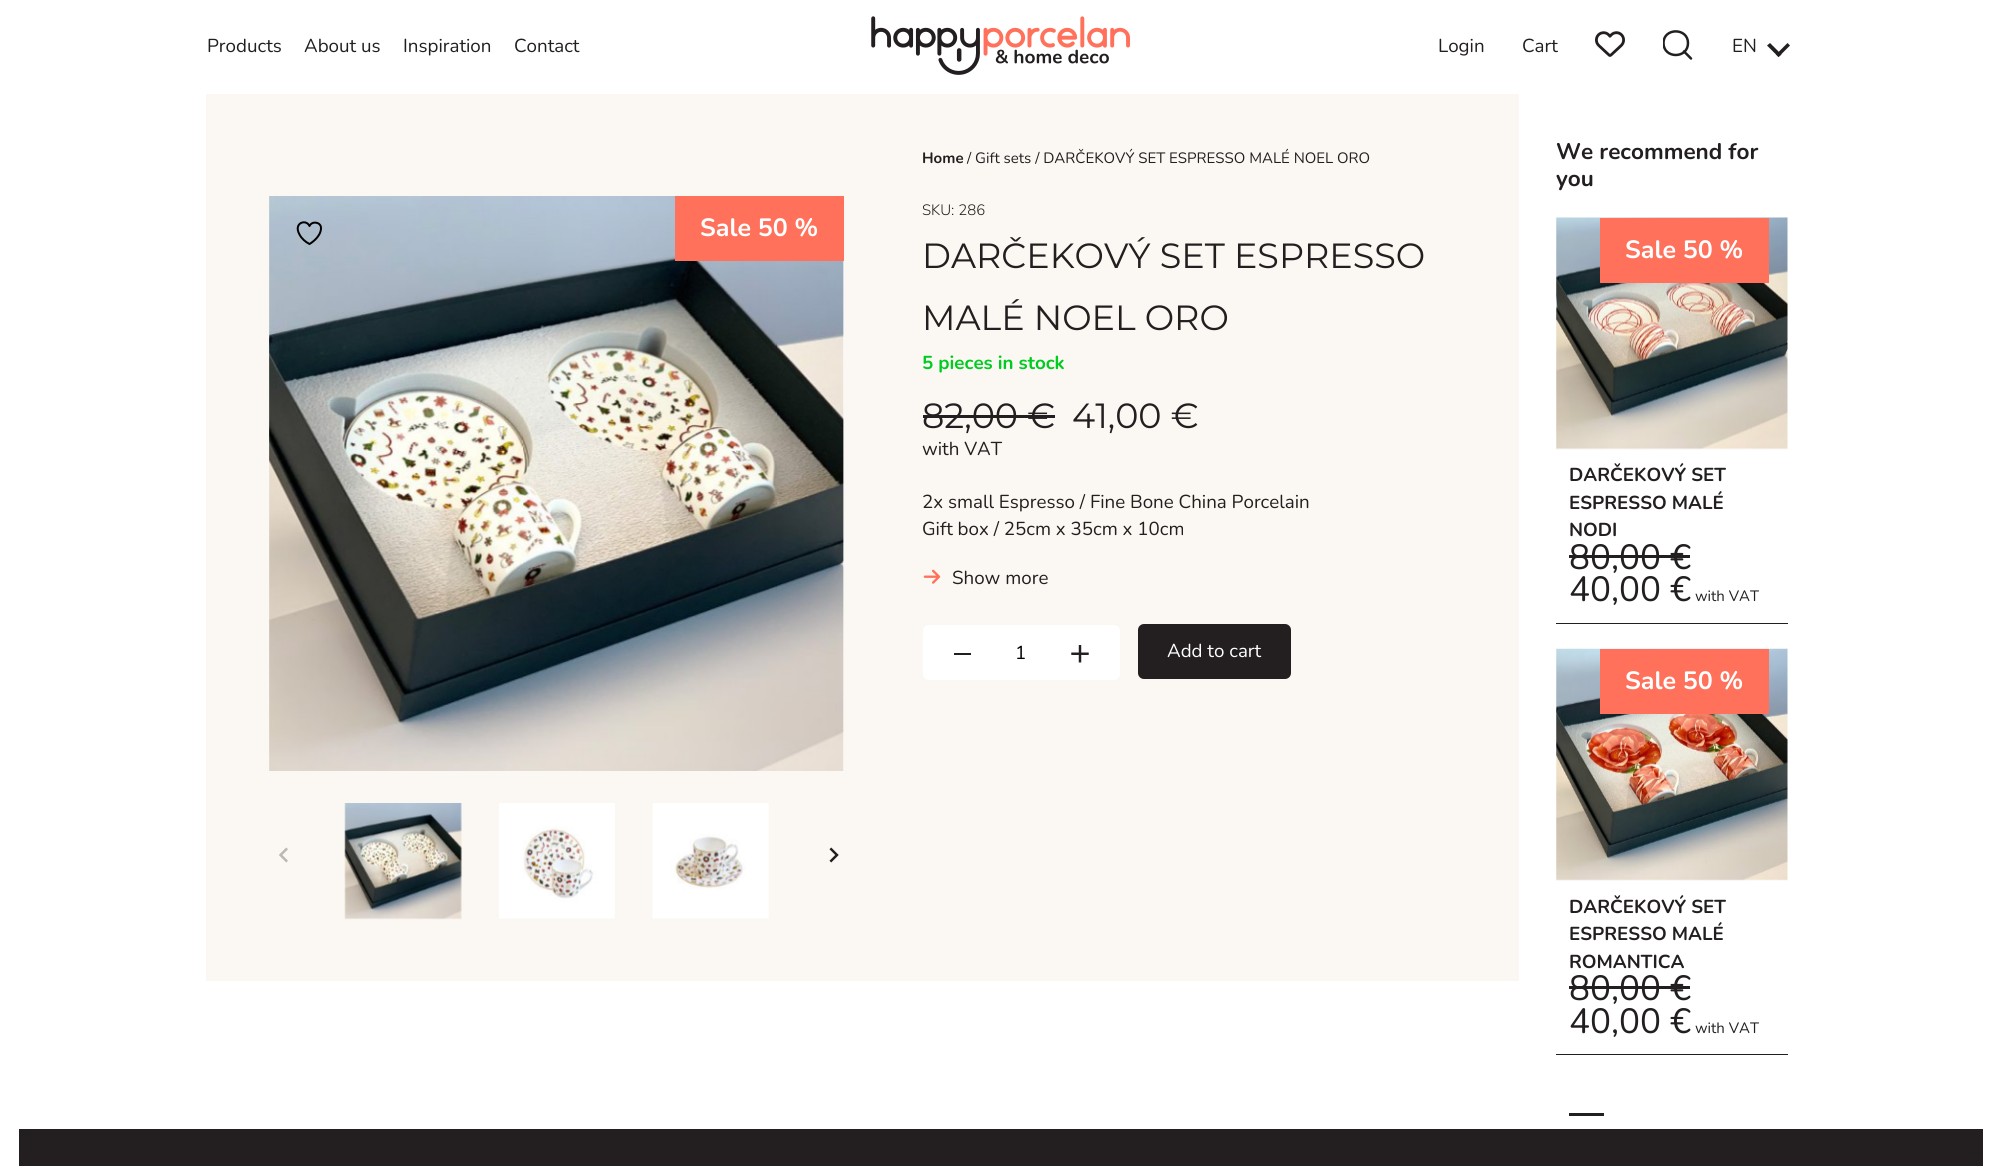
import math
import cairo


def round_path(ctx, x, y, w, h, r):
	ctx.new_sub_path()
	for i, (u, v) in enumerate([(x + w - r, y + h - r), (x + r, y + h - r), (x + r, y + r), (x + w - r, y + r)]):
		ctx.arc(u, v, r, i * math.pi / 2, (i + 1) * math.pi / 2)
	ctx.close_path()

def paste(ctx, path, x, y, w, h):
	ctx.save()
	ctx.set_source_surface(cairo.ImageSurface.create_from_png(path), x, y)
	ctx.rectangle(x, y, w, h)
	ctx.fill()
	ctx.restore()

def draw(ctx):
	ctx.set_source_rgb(1, 1, 1)
	ctx.paint()
	ctx.select_font_face('Nunito')
	ctx.set_font_size(18.75)
	ctx.set_source_rgb(0.137, 0.122, 0.125)
	for x, y, s in [
		(207, 52, 'Products'),
		(304, 52, 'About us'),
		(403, 52, 'Inspiration'),
		(514, 52, 'Contact'),
	]:
		ctx.move_to(x, y)
		ctx.show_text(s)
	paste(ctx, 'media/1.png', 871, 16, 259, 59)
	ctx.move_to(1438, 52)
	ctx.show_text('Login')
	ctx.move_to(1522, 52)
	ctx.show_text('Cart')
	paste(ctx, 'media/2.png', 1595, 31, 30, 26)
	ctx.save()
	ctx.rectangle(1663, 30, 30, 30)
	ctx.clip()
	ctx.new_path()
	ctx.move_to(1688, 43)
	ctx.curve_to(1688, 59, 1663.5, 59, 1663.5, 43)
	ctx.curve_to(1663.5, 27.5, 1688, 27.5, 1688, 43)
	ctx.close_path()
	ctx.set_line_width(2.5)
	ctx.set_line_cap(cairo.LINE_CAP_ROUND)
	ctx.set_line_join(cairo.LINE_JOIN_ROUND)
	ctx.stroke()
	ctx.restore()
	ctx.new_path()
	ctx.move_to(1691, 58.5)
	ctx.line_to(1684, 51.5)
	ctx.set_line_width(2.5)
	ctx.set_line_cap(cairo.LINE_CAP_ROUND)
	ctx.set_line_join(cairo.LINE_JOIN_ROUND)
	ctx.stroke()
	ctx.move_to(1732, 52)
	ctx.show_text('EN')
	ctx.new_path()
	ctx.move_to(1787.5, 43)
	ctx.line_to(1790, 45.5)
	ctx.line_to(1778.5, 57)
	ctx.line_to(1776, 54.5)
	ctx.close_path()
	ctx.fill()
	ctx.new_path()
	ctx.move_to(1770, 43)
	ctx.line_to(1781.5, 54.5)
	ctx.line_to(1778.5, 57)
	ctx.line_to(1767, 45.5)
	ctx.close_path()
	ctx.fill()
	ctx.set_source_rgb(0.984, 0.969, 0.953)
	ctx.rectangle(206, 94, 1313, 887)
	ctx.fill()
	ctx.select_font_face('Nunito', cairo.FONT_SLANT_NORMAL, cairo.FONT_WEIGHT_BOLD)
	ctx.set_font_size(15)
	ctx.set_source_rgb(0.137, 0.122, 0.125)
	ctx.move_to(922, 163)
	ctx.show_text('Home')
	ctx.select_font_face('Nunito')
	ctx.move_to(967, 163)
	ctx.show_text('/ Gift sets / DARČEKOVÝ SET ESPRESSO MALÉ NOEL ORO')
	ctx.set_source_rgb(1, 1, 1)
	ctx.rectangle(269, 196, 575, 575)
	ctx.fill()
	paste(ctx, 'media/3.png', 269, 196, 575, 575)
	ctx.set_source_rgba(1, 1, 1, 0.38)
	ctx.rectangle(843, 261, 1, 510)
	ctx.fill()
	ctx.new_path()
	ctx.move_to(321, 228)
	ctx.curve_to(321, 222, 312, 220.5, 309.5, 226)
	ctx.curve_to(306, 218.5, 293, 223, 299.5, 234.5)
	ctx.curve_to(301.5, 238.5, 305.5, 242, 309.5, 244)
	ctx.curve_to(309.5, 244, 321, 237.5, 321, 228)
	ctx.close_path()
	ctx.set_source_rgb(0, 0, 0)
	ctx.set_line_width(2)
	ctx.stroke()
	paste(ctx, 'media/4.png', 279, 847, 9, 16)
	paste(ctx, 'media/5.png', 344, 803, 118, 117)
	paste(ctx, 'media/6.png', 499, 803, 116, 116)
	paste(ctx, 'media/7.png', 652, 803, 117, 116)
	paste(ctx, 'media/8.png', 829, 847, 10, 16)
	ctx.set_source_rgb(1, 0.443, 0.357)
	ctx.rectangle(675, 196, 169, 65)
	ctx.fill()
	ctx.select_font_face('Nunito', cairo.FONT_SLANT_NORMAL, cairo.FONT_WEIGHT_BOLD)
	ctx.set_font_size(25)
	ctx.set_source_rgb(1, 1, 1)
	ctx.move_to(700, 236)
	ctx.show_text('Sale 50 %')
	ctx.select_font_face('Nunito Light')
	ctx.set_font_size(15)
	ctx.set_source_rgb(0.137, 0.122, 0.125)
	ctx.move_to(922, 215)
	ctx.show_text('SKU: 286')
	ctx.select_font_face('Montserrat')
	ctx.set_font_size(35)
	ctx.move_to(922, 268)
	ctx.show_text('DARČEKOVÝ SET ESPRESSO')
	ctx.move_to(922, 330)
	ctx.show_text('MALÉ NOEL ORO')
	ctx.select_font_face('Nunito', cairo.FONT_SLANT_NORMAL, cairo.FONT_WEIGHT_BOLD)
	ctx.set_font_size(18.75)
	ctx.set_source_rgb(0, 0.796, 0.125)
	ctx.move_to(922, 369)
	ctx.show_text('5 pieces in stock')
	ctx.select_font_face('Montserrat')
	ctx.set_font_size(35)
	ctx.set_source_rgb(0.137, 0.122, 0.125)
	ctx.move_to(922, 428)
	ctx.show_text('82,00 €')
	ctx.rectangle(923, 415, 132, 3)
	ctx.fill()
	ctx.move_to(1072, 428)
	ctx.show_text('41,00 €')
	ctx.select_font_face('Nunito')
	ctx.set_font_size(18.75)
	for x, y, s in [
		(922, 455, 'with VAT'),
		(922, 508, '2x small Espresso / Fine Bone China Porcelain'),
		(922, 535, 'Gift box / 25cm x 35cm x 10cm'),
	]:
		ctx.move_to(x, y)
		ctx.show_text(s)
	paste(ctx, 'media/9.png', 923, 569, 18, 15)
	ctx.move_to(952, 584)
	ctx.show_text('Show more')
	ctx.set_source_rgb(1, 1, 1)
	round_path(ctx, 923, 625, 197, 55, 6)
	ctx.fill()
	ctx.set_source_rgb(0.137, 0.122, 0.125)
	ctx.rectangle(954, 653, 17, 2)
	ctx.fill()
	ctx.set_source_rgb(0, 0, 0)
	ctx.move_to(1015, 659)
	ctx.show_text('1')
	paste(ctx, 'media/10.png', 1071, 645, 18, 18)
	ctx.set_source_rgb(0.137, 0.122, 0.125)
	round_path(ctx, 1138, 624, 153, 55, 6)
	ctx.fill()
	ctx.set_source_rgb(1, 1, 1)
	ctx.move_to(1167, 657)
	ctx.show_text('Add to cart')
	ctx.select_font_face('Nunito', cairo.FONT_SLANT_NORMAL, cairo.FONT_WEIGHT_BOLD)
	ctx.set_font_size(22.5)
	ctx.set_source_rgb(0.137, 0.122, 0.125)
	ctx.move_to(1556, 159)
	ctx.show_text('We recommend for')
	ctx.move_to(1556, 186)
	ctx.show_text('you')
	ctx.rectangle(1556, 623, 232, 1)
	ctx.fill()
	paste(ctx, 'media/11.png', 1556, 217, 232, 233)
	ctx.set_source_rgb(1, 0.443, 0.357)
	ctx.rectangle(1600, 218, 169, 65)
	ctx.fill()
	ctx.set_font_size(25)
	ctx.set_source_rgb(1, 1, 1)
	ctx.move_to(1625, 258)
	ctx.show_text('Sale 50 %')
	ctx.set_font_size(18.75)
	ctx.set_source_rgb(0.137, 0.122, 0.125)
	for x, y, s in [
		(1569, 481, 'DARČEKOVÝ SET'),
		(1569, 509, 'ESPRESSO MALÉ'),
		(1569, 536, 'NODI'),
	]:
		ctx.move_to(x, y)
		ctx.show_text(s)
	ctx.select_font_face('Nunito')
	ctx.set_font_size(35)
	ctx.move_to(1569, 569)
	ctx.show_text('80,00 €')
	ctx.rectangle(1569, 555, 121, 3)
	ctx.fill()
	ctx.move_to(1569, 601)
	ctx.show_text('40,00 €')
	ctx.set_font_size(15)
	ctx.move_to(1695, 601)
	ctx.show_text('with VAT')
	ctx.rectangle(1556, 1054, 232, 1)
	ctx.fill()
	paste(ctx, 'media/12.png', 1556, 648, 232, 233)
	ctx.set_source_rgb(1, 0.443, 0.357)
	ctx.rectangle(1600, 649, 169, 65)
	ctx.fill()
	ctx.select_font_face('Nunito', cairo.FONT_SLANT_NORMAL, cairo.FONT_WEIGHT_BOLD)
	ctx.set_font_size(25)
	ctx.set_source_rgb(1, 1, 1)
	ctx.move_to(1625, 689)
	ctx.show_text('Sale 50 %')
	ctx.set_font_size(18.75)
	ctx.set_source_rgb(0.137, 0.122, 0.125)
	for x, y, s in [
		(1569, 913, 'DARČEKOVÝ SET'),
		(1569, 940, 'ESPRESSO MALÉ'),
		(1569, 968, 'ROMANTICA'),
	]:
		ctx.move_to(x, y)
		ctx.show_text(s)
	ctx.select_font_face('Nunito')
	ctx.set_font_size(35)
	ctx.move_to(1569, 1000)
	ctx.show_text('80,00 €')
	ctx.rectangle(1569, 986, 121, 3)
	ctx.fill()
	ctx.move_to(1569, 1033)
	ctx.show_text('40,00 €')
	ctx.set_font_size(15)
	ctx.move_to(1695, 1033)
	ctx.show_text('with VAT')
	ctx.rectangle(1569, 1113, 35, 3)
	ctx.fill()
	ctx.rectangle(19, 1129, 1964, 37)
	ctx.fill()


surface = cairo.ImageSurface(cairo.FORMAT_RGB24, 2001, 1166)
ctx = cairo.Context(surface)
options = cairo.FontOptions()
options.set_hint_metrics(cairo.HINT_METRICS_OFF)
options.set_hint_style(cairo.HINT_STYLE_NONE)
ctx.set_font_options(options)
ctx.set_miter_limit(4)
draw(ctx)
surface.write_to_png('image.png')
